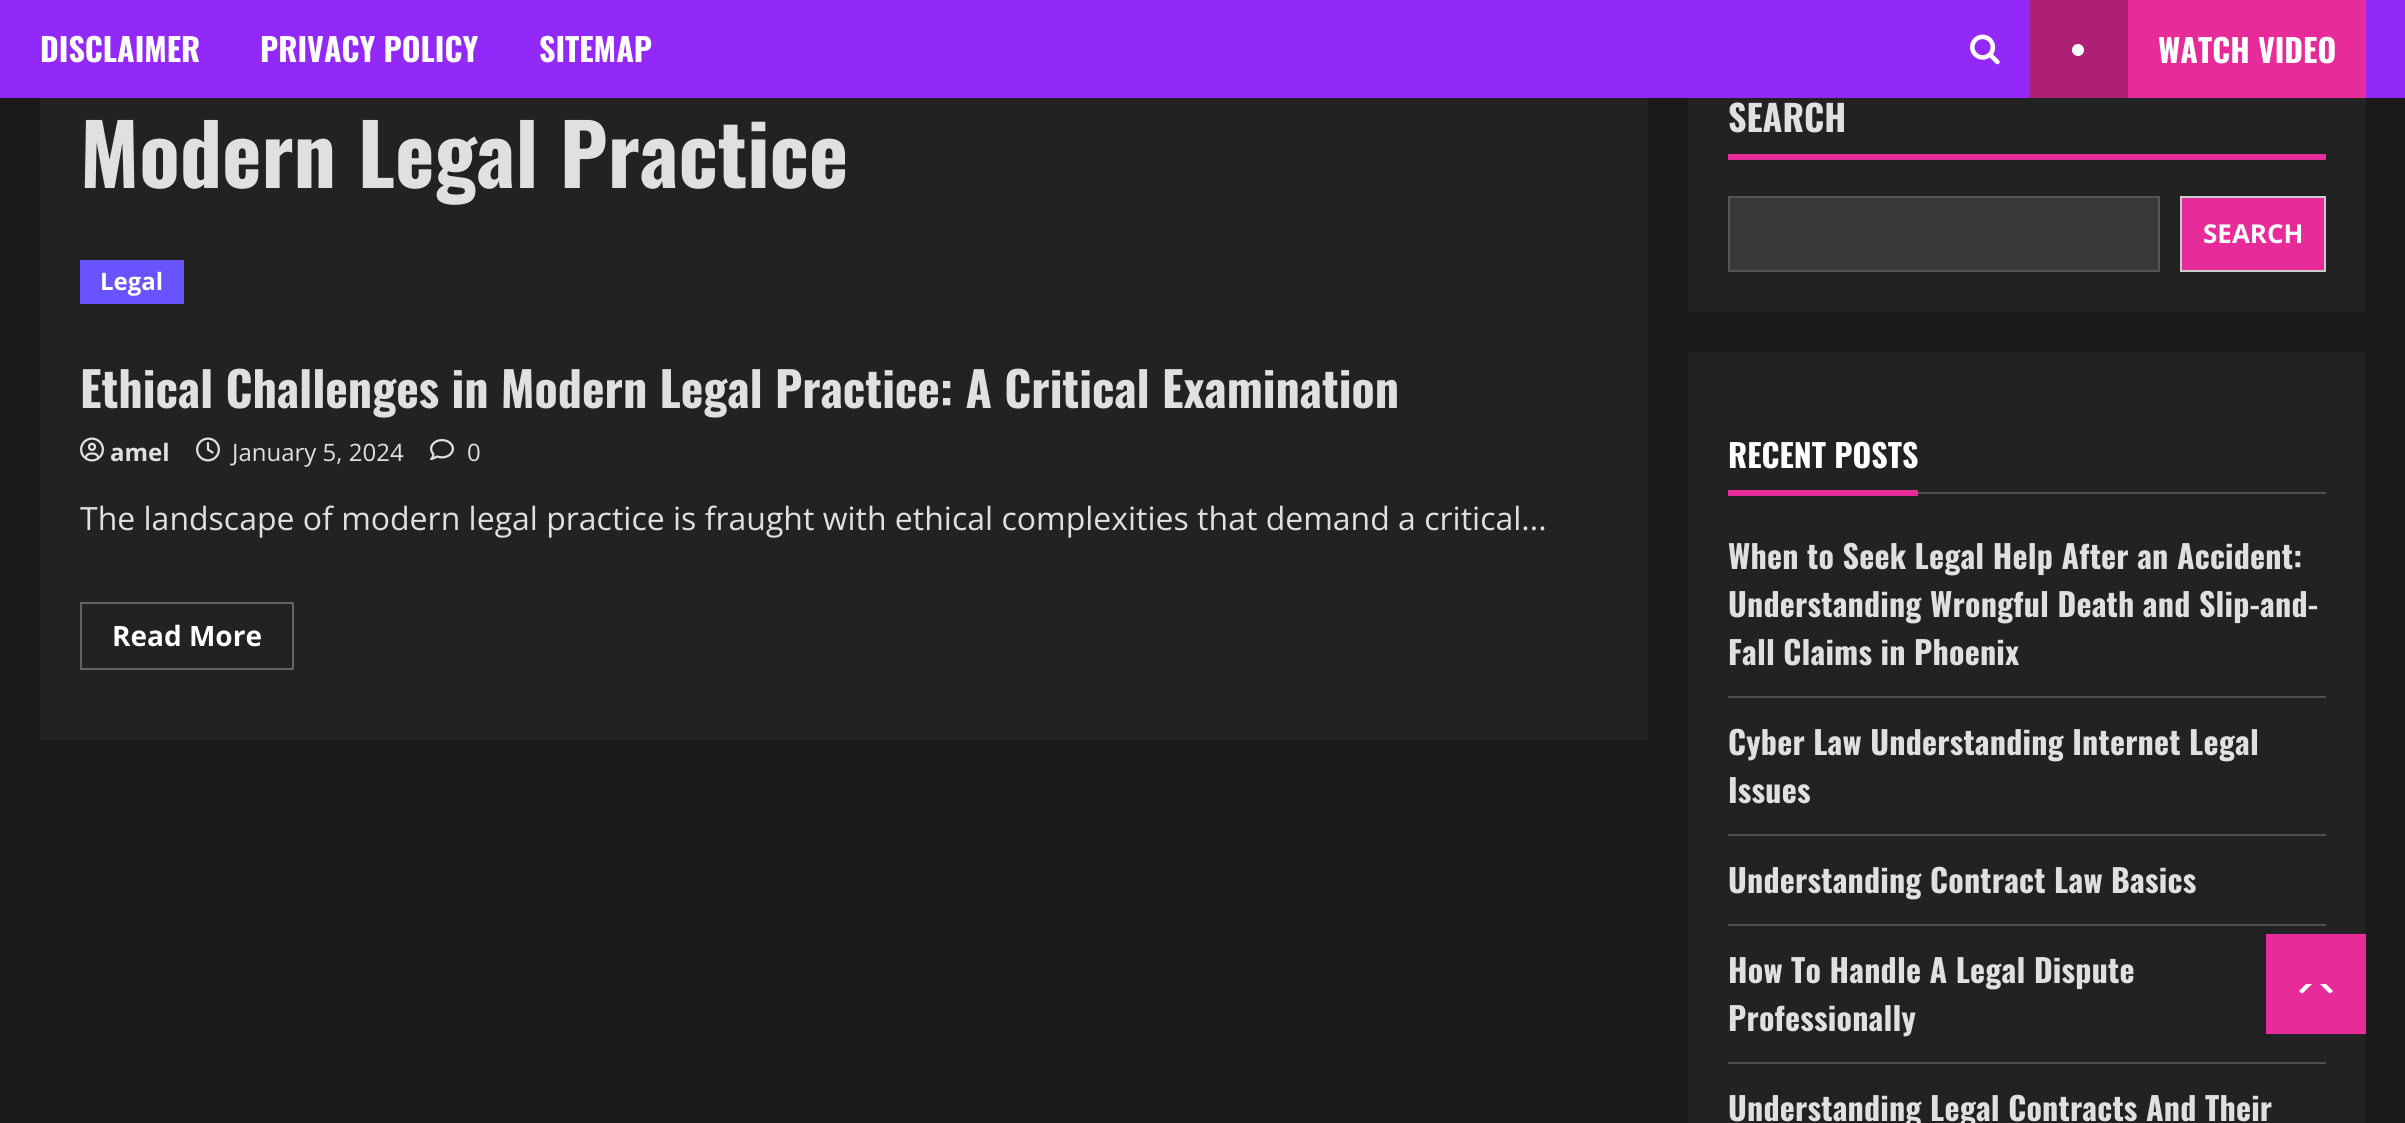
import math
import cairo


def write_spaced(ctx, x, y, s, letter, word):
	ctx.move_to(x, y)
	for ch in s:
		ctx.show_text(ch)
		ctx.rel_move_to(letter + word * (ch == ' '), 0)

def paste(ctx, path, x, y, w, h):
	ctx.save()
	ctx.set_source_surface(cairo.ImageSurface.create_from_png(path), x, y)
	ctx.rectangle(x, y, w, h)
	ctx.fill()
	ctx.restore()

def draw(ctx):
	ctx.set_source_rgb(0.102, 0.102, 0.102)
	ctx.paint()
	ctx.set_source_rgb(0.573, 0.161, 0.969)
	ctx.rectangle(0, 0, 2405, 98)
	ctx.fill()
	ctx.select_font_face('Oswald', cairo.FONT_SLANT_NORMAL, cairo.FONT_WEIGHT_BOLD)
	ctx.set_font_size(32)
	ctx.set_source_rgb(1, 1, 1)
	for x, y, s in [
		(40, 62, 'DISCLAIMER'),
		(260, 62, 'PRIVACY POLICY'),
		(539, 62, 'SITEMAP'),
	]:
		ctx.move_to(x, y)
		ctx.show_text(s)
	paste(ctx, 'media/1.png', 1970, 34, 30, 31)
	ctx.set_source_rgb(0.906, 0.169, 0.6)
	ctx.rectangle(2128, 0, 238, 98)
	ctx.fill()
	ctx.set_source_rgb(0.678, 0.125, 0.451)
	ctx.rectangle(2030, 0, 98, 98)
	ctx.fill()
	ctx.set_source_rgb(1, 1, 1)
	ctx.arc(2078, 50, 6, 0, 2 * math.pi)
	ctx.fill()
	ctx.move_to(2158, 63)
	ctx.show_text('WATCH VIDEO')
	ctx.set_source_rgb(0.133, 0.133, 0.133)
	ctx.rectangle(40, 98, 1608, 642)
	ctx.fill()
	ctx.set_font_size(84)
	ctx.set_source_rgb(0.878, 0.878, 0.878)
	ctx.move_to(80, 188)
	ctx.show_text('Modern Legal Practice')
	ctx.set_source_rgb(0.412, 0.325, 1)
	ctx.rectangle(80, 260, 104, 44)
	ctx.fill()
	ctx.select_font_face('Open Sans', cairo.FONT_SLANT_NORMAL, cairo.FONT_WEIGHT_BOLD)
	ctx.set_font_size(24)
	ctx.set_source_rgb(1, 1, 1)
	ctx.move_to(100, 290)
	ctx.show_text('Legal')
	ctx.select_font_face('Oswald', cairo.FONT_SLANT_NORMAL, cairo.FONT_WEIGHT_BOLD)
	ctx.set_font_size(48)
	ctx.set_source_rgb(0.878, 0.878, 0.878)
	ctx.move_to(80, 408)
	ctx.show_text('Ethical Challenges in Modern Legal Practice: A Critical Examination')
	paste(ctx, 'media/2.png', 80, 437, 24, 25)
	ctx.select_font_face('Open Sans', cairo.FONT_SLANT_NORMAL, cairo.FONT_WEIGHT_BOLD)
	ctx.set_font_size(24)
	ctx.move_to(110, 461)
	ctx.show_text('amel')
	paste(ctx, 'media/3.png', 196, 437, 24, 25)
	ctx.select_font_face('Open Sans')
	ctx.move_to(232, 461)
	ctx.show_text('January 5, 2024')
	paste(ctx, 'media/4.png', 430, 439, 24, 21)
	ctx.move_to(467, 461)
	ctx.show_text('0')
	ctx.set_font_size(32)
	ctx.move_to(80, 530)
	ctx.show_text('The landscape of modern legal practice is fraught with ethical complexities that demand a critical...')
	ctx.rectangle(81, 603, 212, 66)
	ctx.set_source_rgb(0.392, 0.392, 0.392)
	ctx.stroke()
	ctx.select_font_face('Open Sans', cairo.FONT_SLANT_NORMAL, cairo.FONT_WEIGHT_BOLD)
	ctx.set_font_size(28)
	ctx.set_source_rgb(1, 1, 1)
	ctx.move_to(112, 646)
	ctx.show_text('Read More')
	ctx.set_source_rgb(0.133, 0.133, 0.133)
	ctx.rectangle(1688, 98, 678, 214)
	ctx.fill()
	ctx.select_font_face('Oswald', cairo.FONT_SLANT_NORMAL, cairo.FONT_WEIGHT_BOLD)
	ctx.set_font_size(36)
	ctx.set_source_rgb(0.878, 0.878, 0.878)
	ctx.move_to(1728, 132)
	ctx.show_text('SEARCH')
	ctx.set_source_rgb(0.906, 0.169, 0.6)
	ctx.rectangle(1728, 154, 598, 6)
	ctx.fill()
	ctx.set_source_rgb(0.22, 0.22, 0.22)
	ctx.rectangle(1729, 197, 430, 74)
	ctx.fill_preserve()
	ctx.set_source_rgb(0.337, 0.337, 0.337)
	ctx.stroke()
	ctx.set_source_rgb(0.906, 0.169, 0.6)
	ctx.rectangle(2181, 197, 144, 74)
	ctx.fill_preserve()
	ctx.set_source_rgb(0.8, 0.8, 0.8)
	ctx.stroke()
	ctx.select_font_face('Open Sans', cairo.FONT_SLANT_NORMAL, cairo.FONT_WEIGHT_BOLD)
	ctx.set_font_size(26)
	ctx.set_source_rgb(1, 1, 1)
	ctx.move_to(2203, 243)
	ctx.show_text('SEARCH')
	ctx.set_source_rgb(0.133, 0.133, 0.133)
	ctx.rectangle(1688, 352, 678, 771)
	ctx.fill()
	ctx.select_font_face('Oswald', cairo.FONT_SLANT_NORMAL, cairo.FONT_WEIGHT_BOLD)
	ctx.set_font_size(32)
	ctx.set_source_rgb(1, 1, 1)
	ctx.move_to(1728, 468)
	ctx.show_text('RECENT POSTS')
	ctx.set_source_rgb(0.906, 0.169, 0.6)
	ctx.rectangle(1728, 490, 190, 6)
	ctx.fill()
	ctx.set_source_rgb(0.306, 0.306, 0.306)
	ctx.rectangle(1918, 492, 408, 2)
	ctx.rectangle(1728, 696, 598, 2)
	ctx.fill()
	ctx.set_source_rgb(0.878, 0.878, 0.878)
	for x, y, s in [
		(1728, 569, 'When to Seek Legal Help After an Accident:'),
		(1728, 617, 'Understanding Wrongful Death and Slip-and-'),
		(1728, 665, 'Fall Claims in Phoenix'),
	]:
		write_spaced(ctx, x, y, s, 0.2, 0)
	ctx.set_source_rgb(0.306, 0.306, 0.306)
	ctx.rectangle(1728, 834, 598, 2)
	ctx.fill()
	ctx.set_source_rgb(0.878, 0.878, 0.878)
	write_spaced(ctx, 1728, 755, 'Cyber Law Understanding Internet Legal', 0.2, 0)
	write_spaced(ctx, 1728, 803, 'Issues', 0.2, 0)
	ctx.set_source_rgb(0.306, 0.306, 0.306)
	ctx.rectangle(1728, 924, 598, 2)
	ctx.fill()
	ctx.set_source_rgb(0.878, 0.878, 0.878)
	write_spaced(ctx, 1728, 893, 'Understanding Contract Law Basics', 0.2, 0)
	ctx.set_source_rgb(0.306, 0.306, 0.306)
	ctx.rectangle(1728, 1062, 598, 2)
	ctx.fill()
	ctx.set_source_rgb(0.878, 0.878, 0.878)
	for x, y, s in [
		(1728, 983, 'How To Handle A Legal Dispute'),
		(1728, 1031, 'Professionally'),
		(1728, 1121, 'Understanding Legal Contracts And Their'),
	]:
		write_spaced(ctx, x, y, s, 0.2, 0)
	ctx.set_source_rgb(0.906, 0.169, 0.6)
	ctx.rectangle(2266, 934, 100, 100)
	ctx.fill()
	ctx.set_source_rgb(1, 1, 1)
	ctx.new_path()
	ctx.move_to(2306, 994)
	ctx.line_to(2326, 994)
	ctx.curve_to(2329, 994, 2331.5, 993, 2333, 991)
	ctx.line_to(2326, 984)
	ctx.line_to(2306, 984)
	ctx.line_to(2299, 991)
	ctx.curve_to(2300.5, 993, 2303, 994, 2306, 994)
	ctx.close_path()
	ctx.fill()
	ctx.set_source_rgb(0.906, 0.169, 0.6)
	ctx.new_path()
	ctx.move_to(2336, 1000)
	ctx.line_to(2296, 1000)
	ctx.line_to(2316, 980)
	ctx.close_path()
	ctx.fill()


surface = cairo.ImageSurface(cairo.FORMAT_RGB24, 2405, 1123)
ctx = cairo.Context(surface)
options = cairo.FontOptions()
options.set_hint_metrics(cairo.HINT_METRICS_OFF)
options.set_hint_style(cairo.HINT_STYLE_NONE)
ctx.set_font_options(options)
ctx.set_miter_limit(4)
draw(ctx)
surface.write_to_png('image.png')
